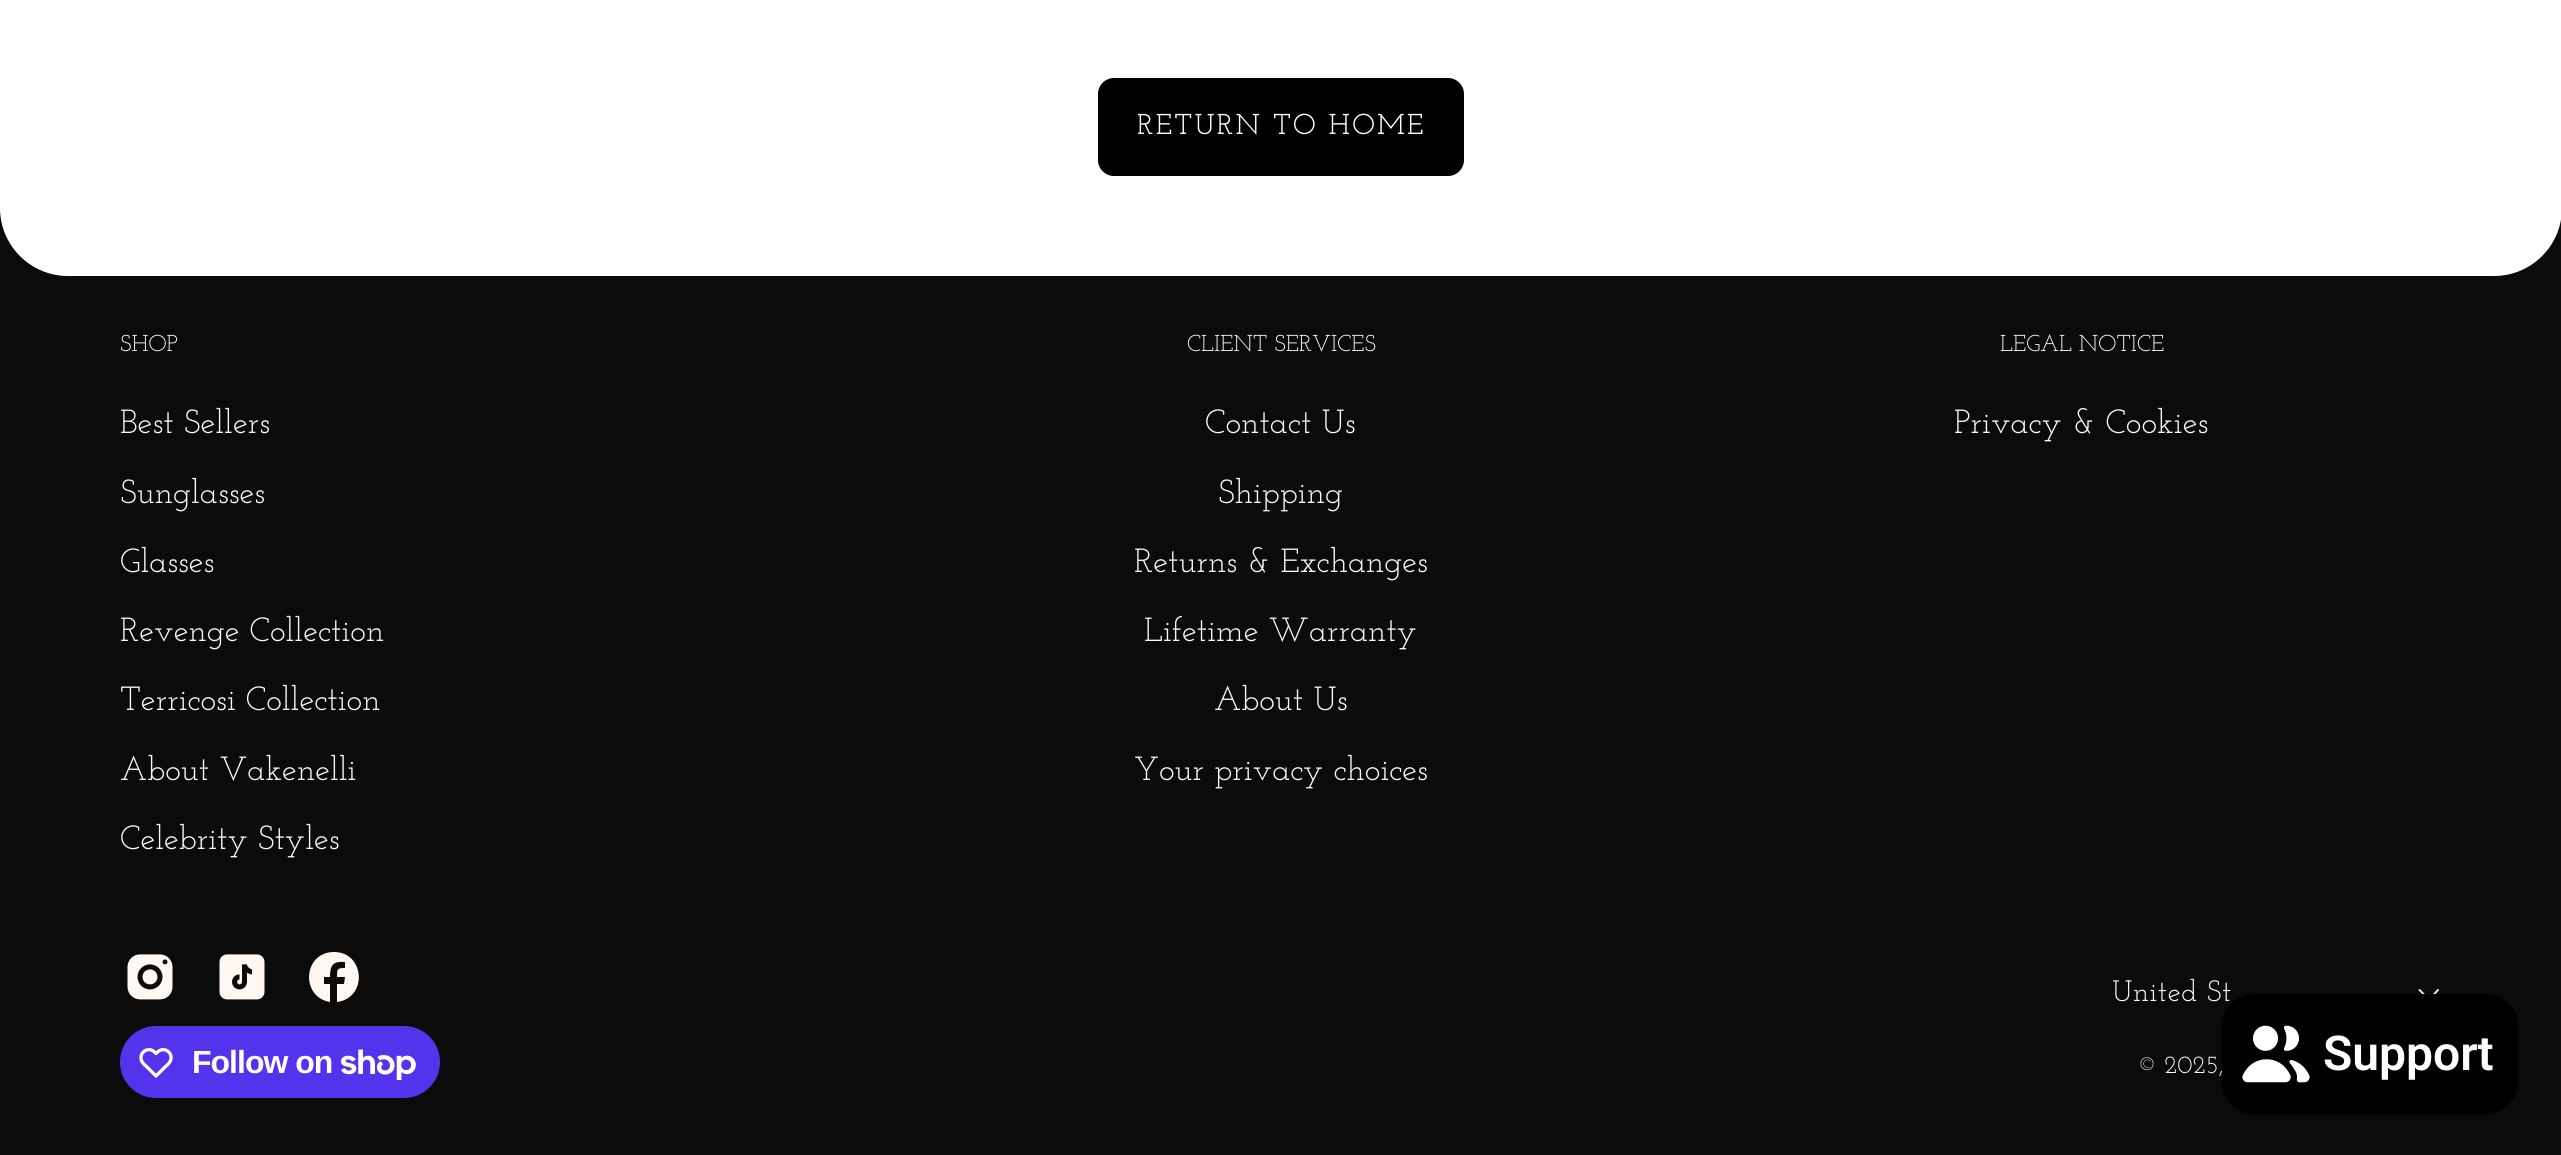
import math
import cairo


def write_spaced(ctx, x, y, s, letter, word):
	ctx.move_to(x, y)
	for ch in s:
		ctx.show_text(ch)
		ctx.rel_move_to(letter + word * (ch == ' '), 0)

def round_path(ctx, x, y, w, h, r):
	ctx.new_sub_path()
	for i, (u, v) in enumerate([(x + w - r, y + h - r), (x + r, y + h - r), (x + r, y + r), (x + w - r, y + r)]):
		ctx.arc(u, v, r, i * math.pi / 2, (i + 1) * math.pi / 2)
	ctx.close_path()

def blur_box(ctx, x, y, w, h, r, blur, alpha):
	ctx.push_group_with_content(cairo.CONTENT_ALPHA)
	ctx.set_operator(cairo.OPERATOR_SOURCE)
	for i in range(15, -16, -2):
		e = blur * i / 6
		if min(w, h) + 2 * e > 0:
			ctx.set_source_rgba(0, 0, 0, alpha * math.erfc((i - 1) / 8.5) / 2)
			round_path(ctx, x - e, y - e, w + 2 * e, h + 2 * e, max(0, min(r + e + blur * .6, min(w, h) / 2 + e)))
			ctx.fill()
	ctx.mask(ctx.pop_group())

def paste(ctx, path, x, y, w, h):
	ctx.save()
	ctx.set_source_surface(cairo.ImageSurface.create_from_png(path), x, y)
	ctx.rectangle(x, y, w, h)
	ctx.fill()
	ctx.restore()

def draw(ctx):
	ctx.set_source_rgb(0.043, 0.043, 0.043)
	ctx.paint()
	blur_box(ctx, 20, -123, 2522, 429, 48, 25, 1)
	ctx.set_source_rgb(1, 1, 1)
	ctx.new_path()
	ctx.move_to(0, -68)
	ctx.line_to(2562, -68)
	ctx.line_to(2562, 208)
	ctx.curve_to(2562, 245.5, 2531.5, 276, 2494, 276)
	ctx.line_to(68, 276)
	ctx.curve_to(30.5, 276, 0, 245.5, 0, 208)
	ctx.close_path()
	ctx.fill()
	ctx.set_source_rgb(0, 0, 0)
	round_path(ctx, 1098, 78, 366, 98, 16)
	ctx.fill()
	ctx.select_font_face('Josefin Slab Medium')
	ctx.set_font_size(28.75)
	ctx.set_source_rgb(1, 1, 1)
	write_spaced(ctx, 1137, 134, 'RETURN TO HOME', 2.2, 0)
	ctx.select_font_face('Josefin Slab')
	ctx.set_font_size(23)
	ctx.set_source_rgb(1, 0.969, 0.949)
	ctx.move_to(120, 351)
	ctx.show_text('SHOP')
	ctx.set_font_size(33.5)
	for x, y, s in [
		(120, 433, 'Best Sellers'),
		(120, 503, 'Sunglasses'),
		(120, 572, 'Glasses'),
		(120, 641, 'Revenge Collection'),
		(120, 710, 'Terricosi Collection'),
		(120, 780, 'About Vakenelli'),
		(120, 849, 'Celebrity Styles'),
	]:
		ctx.move_to(x, y)
		ctx.show_text(s)
	ctx.set_font_size(23)
	ctx.move_to(1187, 351)
	ctx.show_text('CLIENT SERVICES')
	ctx.set_font_size(33.5)
	for x, y, s in [
		(1205, 433, 'Contact Us'),
		(1218, 503, 'Shipping'),
		(1134, 572, 'Returns & Exchanges'),
		(1144, 641, 'Lifetime Warranty'),
		(1214, 710, 'About Us'),
		(1134, 780, 'Your privacy choices'),
	]:
		ctx.move_to(x, y)
		ctx.show_text(s)
	ctx.set_font_size(23)
	ctx.move_to(2000, 351)
	ctx.show_text('LEGAL NOTICE')
	ctx.set_font_size(33.5)
	ctx.move_to(1954, 433)
	ctx.show_text('Privacy & Cookies')
	paste(ctx, 'media/1.png', 127, 954, 46, 46)
	paste(ctx, 'media/2.png', 219, 954, 46, 46)
	ctx.new_path()
	ctx.move_to(334, 952)
	ctx.curve_to(303, 952, 300, 997, 330, 1002)
	ctx.line_to(330, 984)
	ctx.line_to(324, 984)
	ctx.line_to(324, 977)
	ctx.line_to(330, 977)
	ctx.curve_to(330, 965, 333, 961, 345, 962)
	ctx.line_to(345, 968)
	ctx.curve_to(337, 968, 337, 969, 337, 977)
	ctx.line_to(345, 977)
	ctx.line_to(344, 984)
	ctx.line_to(337, 984)
	ctx.line_to(337, 1002)
	ctx.curve_to(368, 998, 365, 952, 334, 952)
	ctx.close_path()
	ctx.fill()
	ctx.set_source_rgb(0.329, 0.2, 0.922)
	round_path(ctx, 120, 1026, 320, 72, 36)
	ctx.fill()
	ctx.new_path()
	ctx.move_to(154.5, 1052)
	ctx.line_to(156, 1053.5)
	ctx.curve_to(157.5, 1052, 159, 1050.5, 161, 1050)
	ctx.curve_to(167, 1048, 173, 1054.5, 170.5, 1060.5)
	ctx.curve_to(169.5, 1063.5, 166.5, 1065.5, 164.5, 1067.5)
	ctx.line_to(156, 1076)
	ctx.line_to(147.5, 1067.5)
	ctx.curve_to(145.5, 1065.5, 142.5, 1063.5, 141.5, 1060.5)
	ctx.curve_to(138.5, 1052.5, 148.5, 1046, 154.5, 1052)
	ctx.close_path()
	ctx.set_source_rgb(1, 1, 1)
	ctx.set_line_width(3.3)
	ctx.set_line_join(cairo.LINE_JOIN_ROUND)
	ctx.stroke()
	ctx.select_font_face('Liberation Sans', cairo.FONT_SLANT_NORMAL, cairo.FONT_WEIGHT_BOLD)
	ctx.set_font_size(32)
	write_spaced(ctx, 192, 1073, 'Follow on', -1, 0)
	paste(ctx, 'media/3.png', 341, 1049, 75, 31)
	ctx.select_font_face('Josefin Slab')
	ctx.set_font_size(29.5)
	ctx.set_source_rgb(1, 0.969, 0.949)
	write_spaced(ctx, 2112, 1001, 'United St', 0.5, 0)
	ctx.new_path()
	ctx.move_to(2438, 990)
	ctx.line_to(2429, 999.5)
	ctx.line_to(2419.5, 990)
	ctx.set_line_width(1.9)
	ctx.set_line_cap(cairo.LINE_CAP_ROUND)
	ctx.stroke()
	ctx.set_font_size(25)
	ctx.move_to(2137, 1073)
	ctx.show_text('© 2025,')
	ctx.set_source_rgb(0, 0, 0)
	blur_box(ctx, 2222, 994, 296, 120, 32, 5, 0.15)
	ctx.set_source_rgb(0, 0, 0)
	round_path(ctx, 2222, 994, 296, 120, 32)
	ctx.fill()
	paste(ctx, 'media/4.png', 2242, 1025, 68, 58)
	ctx.select_font_face('Roboto SemiBold')
	ctx.set_font_size(48)
	ctx.set_source_rgb(1, 1, 1)
	ctx.move_to(2323, 1070)
	ctx.show_text('Support')


surface = cairo.ImageSurface(cairo.FORMAT_RGB24, 2561, 1155)
ctx = cairo.Context(surface)
options = cairo.FontOptions()
options.set_hint_metrics(cairo.HINT_METRICS_OFF)
options.set_hint_style(cairo.HINT_STYLE_NONE)
ctx.set_font_options(options)
ctx.set_miter_limit(4)
draw(ctx)
surface.write_to_png('image.png')
